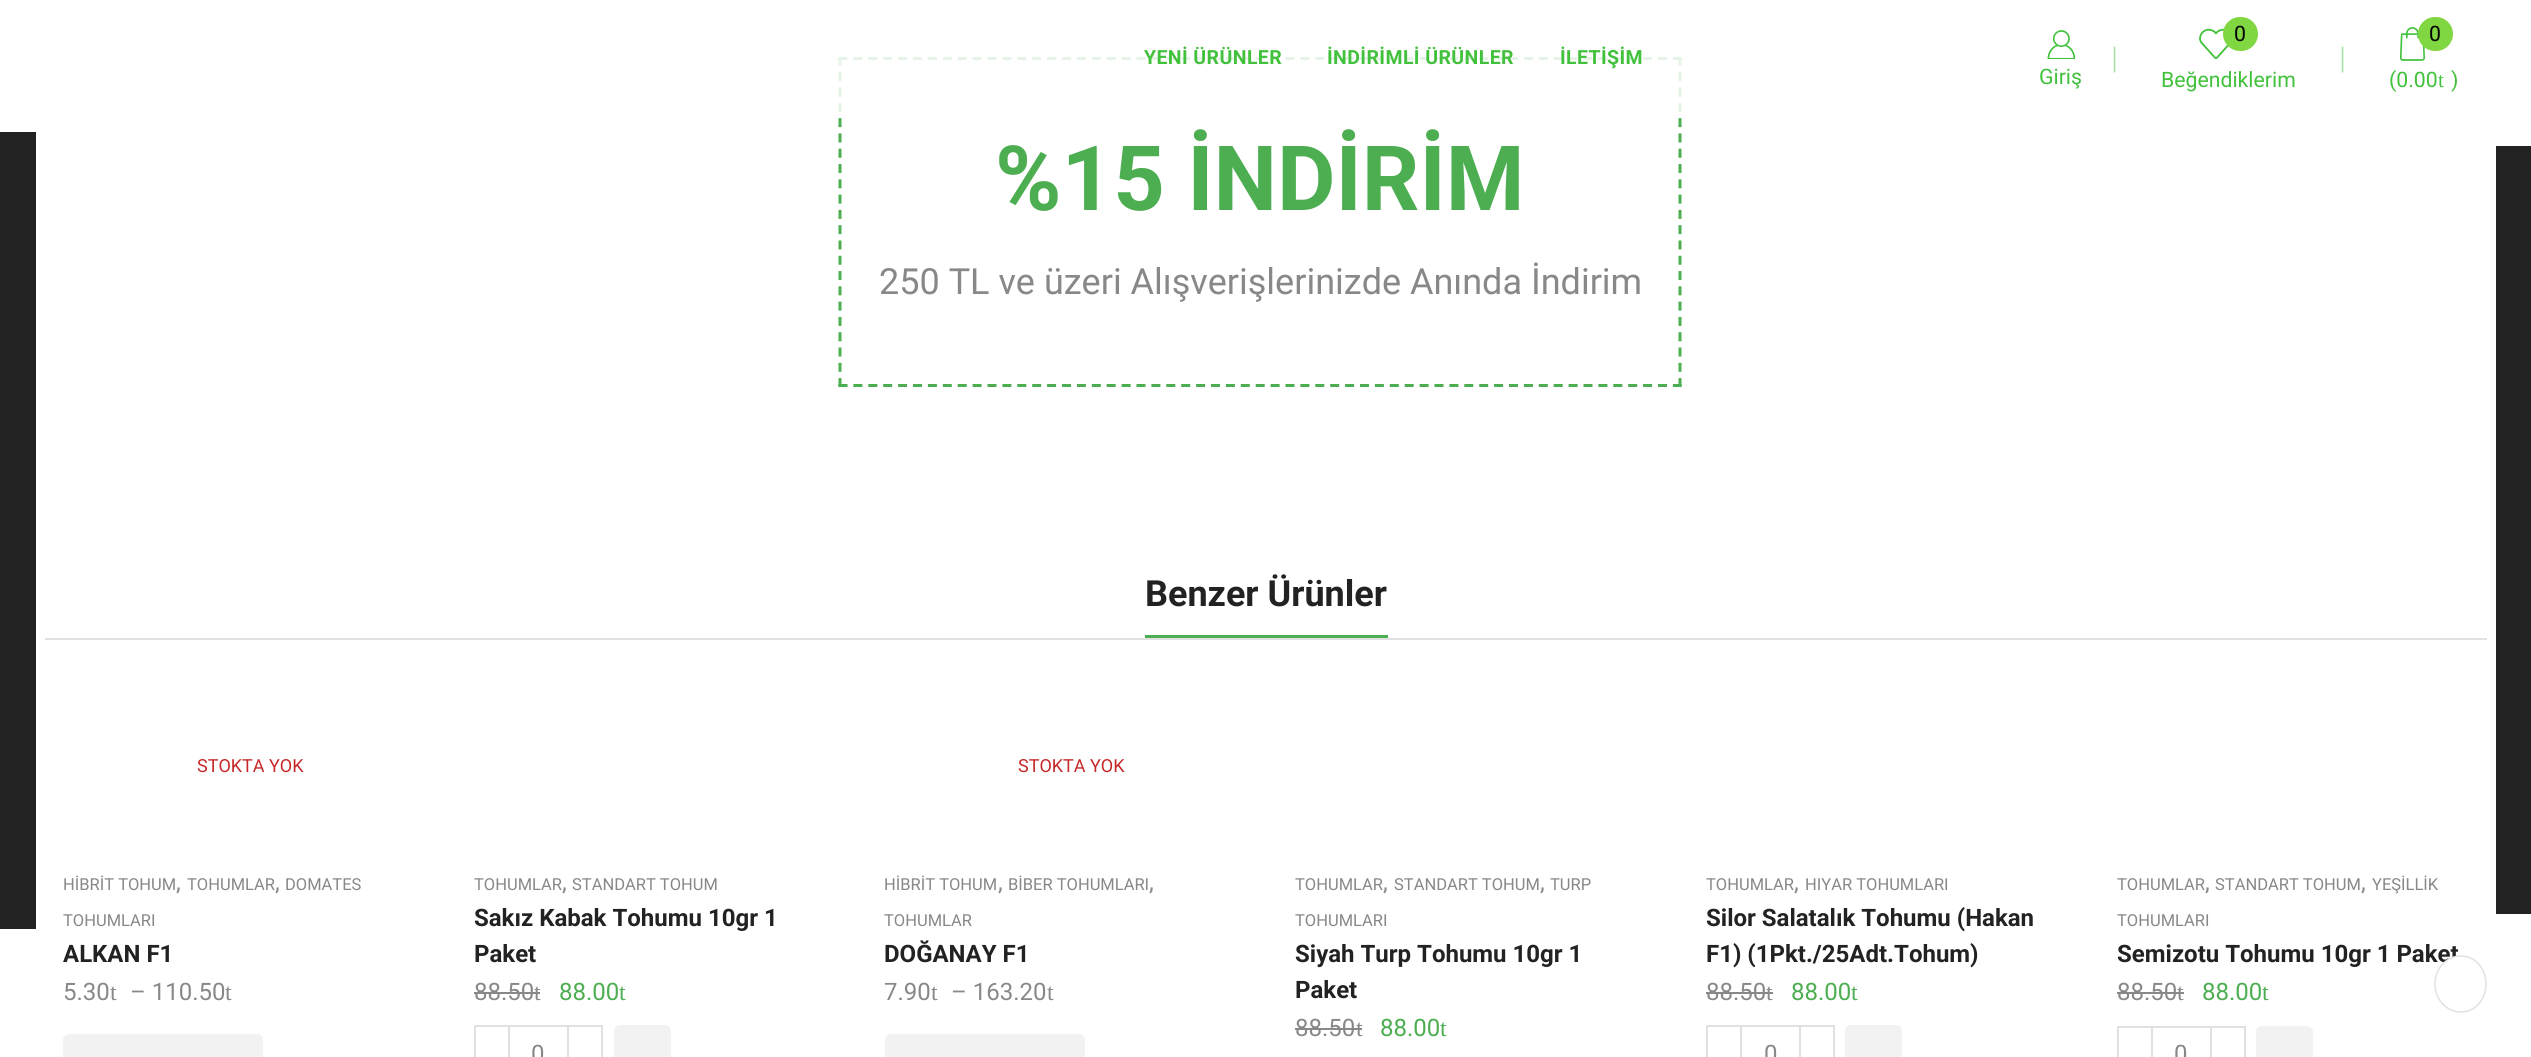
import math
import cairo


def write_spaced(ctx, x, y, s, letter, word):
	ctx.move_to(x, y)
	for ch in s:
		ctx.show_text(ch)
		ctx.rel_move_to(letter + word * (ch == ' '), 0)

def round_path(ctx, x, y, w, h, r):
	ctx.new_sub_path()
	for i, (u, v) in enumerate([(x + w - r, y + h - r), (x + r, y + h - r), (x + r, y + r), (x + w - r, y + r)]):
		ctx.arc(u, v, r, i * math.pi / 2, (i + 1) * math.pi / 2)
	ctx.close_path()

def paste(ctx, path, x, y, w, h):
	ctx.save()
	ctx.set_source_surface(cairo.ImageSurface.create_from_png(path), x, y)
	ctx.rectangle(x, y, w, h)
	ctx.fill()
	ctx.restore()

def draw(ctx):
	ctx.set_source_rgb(1, 1, 1)
	ctx.paint()
	ctx.new_path()
	ctx.move_to(838.5, 58.5)
	ctx.line_to(1681.5, 58.5)
	ctx.set_source_rgb(0.298, 0.682, 0.314)
	ctx.set_line_width(3)
	ctx.set_dash([9, 5.9])
	ctx.stroke()
	ctx.new_path()
	ctx.move_to(1680, 57)
	ctx.line_to(1680, 387)
	ctx.set_dash([9, 6.29])
	ctx.stroke()
	ctx.new_path()
	ctx.move_to(838.5, 385.5)
	ctx.line_to(1681.5, 385.5)
	ctx.set_dash([9, 5.9])
	ctx.stroke()
	ctx.new_path()
	ctx.move_to(840, 57)
	ctx.line_to(840, 387)
	ctx.set_dash([9, 6.29])
	ctx.stroke()
	ctx.set_source_rgba(1, 1, 1, 0.86)
	ctx.rectangle(838, 57, 844, 55)
	ctx.fill()
	ctx.select_font_face('Roboto', cairo.FONT_SLANT_NORMAL, cairo.FONT_WEIGHT_BOLD)
	ctx.set_font_size(19.5)
	ctx.set_source_rgb(0.259, 0.757, 0.235)
	for x, y, s in [
		(1144, 64, 'YENİ ÜRÜNLER'),
		(1327, 64, 'İNDİRİMLİ ÜRÜNLER'),
		(1560, 64, 'İLETİŞİM'),
	]:
		write_spaced(ctx, x, y, s, 0.4, 0)
	ctx.select_font_face('Liberation Serif')
	ctx.set_font_size(21.25)
	ctx.set_source_rgb(0.631, 0.878, 0.62)
	ctx.move_to(2107, 66)
	ctx.show_text('│')
	paste(ctx, 'media/1.png', 2199, 28, 30, 32)
	ctx.set_source_rgb(0.506, 0.843, 0.259)
	round_path(ctx, 2223, 17, 35, 34, 17)
	ctx.fill()
	ctx.select_font_face('Roboto')
	ctx.set_source_rgb(0, 0, 0)
	ctx.move_to(2234, 41)
	ctx.show_text('0')
	ctx.set_source_rgb(0.259, 0.757, 0.235)
	ctx.move_to(2161, 87)
	ctx.show_text('Beğendiklerim')
	ctx.select_font_face('Liberation Serif')
	ctx.set_source_rgb(0.631, 0.878, 0.62)
	ctx.move_to(2335, 66)
	ctx.show_text('│')
	paste(ctx, 'media/2.png', 2399, 27, 26, 34)
	ctx.set_source_rgb(0.506, 0.843, 0.259)
	round_path(ctx, 2418, 17, 35, 34, 17)
	ctx.fill()
	ctx.select_font_face('Roboto')
	ctx.set_source_rgb(0, 0, 0)
	ctx.move_to(2429, 41)
	ctx.show_text('0')
	ctx.set_source_rgb(0.259, 0.757, 0.235)
	ctx.move_to(2389, 87)
	ctx.show_text('(0.00')
	ctx.select_font_face('Liberation Serif')
	ctx.move_to(2438, 87)
	ctx.show_text('t')
	ctx.select_font_face('Roboto')
	ctx.move_to(2451, 87)
	ctx.show_text(')')
	paste(ctx, 'media/3.png', 2047, 30, 28, 29)
	ctx.move_to(2039, 84)
	ctx.show_text('Giriş')
	ctx.select_font_face('Roboto', cairo.FONT_SLANT_NORMAL, cairo.FONT_WEIGHT_BOLD)
	ctx.set_font_size(90)
	ctx.set_source_rgb(0.298, 0.682, 0.314)
	ctx.move_to(995, 210)
	ctx.show_text('%15 İNDİRİM')
	ctx.select_font_face('Roboto')
	ctx.set_font_size(36)
	ctx.set_source_rgb(0.533, 0.533, 0.533)
	ctx.move_to(879, 294)
	ctx.show_text('250 TL ve üzeri Alışverişlerinizde Anında İndirim')
	ctx.set_source_rgb(0.882, 0.882, 0.882)
	ctx.rectangle(45, 638, 2442, 2)
	ctx.fill()
	ctx.select_font_face('Roboto', cairo.FONT_SLANT_NORMAL, cairo.FONT_WEIGHT_BOLD)
	ctx.set_source_rgb(0.133, 0.133, 0.133)
	ctx.move_to(1145, 606)
	ctx.show_text('Benzer Ürünler')
	ctx.set_source_rgb(0.298, 0.686, 0.314)
	ctx.rectangle(1145, 635, 243, 3)
	ctx.fill()
	ctx.select_font_face('Roboto')
	ctx.set_font_size(18)
	ctx.set_source_rgb(0.776, 0.157, 0.157)
	ctx.move_to(197, 772)
	ctx.show_text('STOKTA YOK')
	ctx.set_font_size(16.5)
	ctx.set_source_rgb(0.533, 0.533, 0.533)
	ctx.move_to(63, 890)
	ctx.show_text('HİBRİT TOHUM')
	ctx.set_font_size(24)
	ctx.move_to(176, 890)
	ctx.show_text(',')
	ctx.set_font_size(16.5)
	ctx.move_to(187, 890)
	ctx.show_text('TOHUMLAR')
	ctx.set_font_size(24)
	ctx.move_to(275, 890)
	ctx.show_text(',')
	ctx.set_font_size(16.5)
	ctx.move_to(285, 890)
	ctx.show_text('DOMATES')
	ctx.move_to(63, 926)
	ctx.show_text('TOHUMLARI')
	ctx.select_font_face('Roboto', cairo.FONT_SLANT_NORMAL, cairo.FONT_WEIGHT_BOLD)
	ctx.set_font_size(24)
	ctx.set_source_rgb(0.133, 0.133, 0.133)
	ctx.move_to(63, 962)
	ctx.show_text('ALKAN F1')
	ctx.select_font_face('Roboto')
	ctx.set_source_rgb(0.533, 0.533, 0.533)
	ctx.move_to(63, 1000)
	ctx.show_text('5.30')
	ctx.select_font_face('Liberation Serif')
	ctx.move_to(110, 1000)
	ctx.show_text('t')
	ctx.select_font_face('Roboto')
	ctx.move_to(130, 1000)
	ctx.show_text('– 110.50')
	ctx.select_font_face('Liberation Serif')
	ctx.move_to(225, 1000)
	ctx.show_text('t')
	ctx.set_source_rgb(0.949, 0.949, 0.949)
	round_path(ctx, 63, 1034, 200, 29, 6)
	ctx.fill()
	ctx.select_font_face('Roboto')
	ctx.set_font_size(16.5)
	ctx.set_source_rgb(0.533, 0.533, 0.533)
	ctx.move_to(474, 890)
	ctx.show_text('TOHUMLAR')
	ctx.set_font_size(24)
	ctx.move_to(562, 890)
	ctx.show_text(',')
	ctx.set_font_size(16.5)
	ctx.move_to(572, 890)
	ctx.show_text('STANDART TOHUM')
	ctx.select_font_face('Roboto', cairo.FONT_SLANT_NORMAL, cairo.FONT_WEIGHT_BOLD)
	ctx.set_font_size(24)
	ctx.set_source_rgb(0.133, 0.133, 0.133)
	ctx.move_to(474, 926)
	ctx.show_text('Sakız Kabak Tohumu 10gr 1')
	ctx.move_to(474, 962)
	ctx.show_text('Paket')
	ctx.select_font_face('Roboto')
	ctx.set_source_rgb(0.533, 0.533, 0.533)
	ctx.move_to(474, 1000)
	ctx.show_text('88.50')
	ctx.select_font_face('Liberation Serif')
	ctx.move_to(534, 1000)
	ctx.show_text('t')
	ctx.rectangle(474, 992, 60, 2)
	ctx.fill()
	ctx.rectangle(534, 992, 6, 2)
	ctx.fill()
	ctx.select_font_face('Roboto')
	ctx.set_source_rgb(0.298, 0.682, 0.314)
	ctx.move_to(559, 1000)
	ctx.show_text('88.00')
	ctx.select_font_face('Liberation Serif')
	ctx.move_to(619, 1000)
	ctx.show_text('t')
	ctx.rectangle(475, 1026, 34, 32)
	ctx.set_source_rgb(0.882, 0.882, 0.882)
	ctx.set_line_width(2)
	ctx.set_dash([])
	ctx.stroke()
	ctx.rectangle(510, 1025, 57, 2)
	ctx.fill()
	ctx.select_font_face('Roboto')
	ctx.set_source_rgb(0.533, 0.533, 0.533)
	ctx.move_to(531, 1062)
	ctx.show_text('0')
	ctx.rectangle(568, 1026, 34, 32)
	ctx.set_source_rgb(0.882, 0.882, 0.882)
	ctx.stroke()
	ctx.set_source_rgb(0.949, 0.949, 0.949)
	round_path(ctx, 614, 1025, 57, 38, 6)
	ctx.fill()
	ctx.set_font_size(18)
	ctx.set_source_rgb(0.776, 0.157, 0.157)
	ctx.move_to(1018, 772)
	ctx.show_text('STOKTA YOK')
	ctx.set_font_size(16.5)
	ctx.set_source_rgb(0.533, 0.533, 0.533)
	ctx.move_to(884, 890)
	ctx.show_text('HİBRİT TOHUM')
	ctx.set_font_size(24)
	ctx.move_to(998, 890)
	ctx.show_text(',')
	ctx.set_font_size(16.5)
	ctx.move_to(1008, 890)
	ctx.show_text('BİBER TOHUMLARI')
	ctx.set_font_size(24)
	ctx.move_to(1149, 890)
	ctx.show_text(',')
	ctx.set_font_size(16.5)
	ctx.move_to(884, 926)
	ctx.show_text('TOHUMLAR')
	ctx.select_font_face('Roboto', cairo.FONT_SLANT_NORMAL, cairo.FONT_WEIGHT_BOLD)
	ctx.set_font_size(24)
	ctx.set_source_rgb(0.133, 0.133, 0.133)
	ctx.move_to(884, 962)
	ctx.show_text('DOĞANAY F1')
	ctx.select_font_face('Roboto')
	ctx.set_source_rgb(0.533, 0.533, 0.533)
	ctx.move_to(884, 1000)
	ctx.show_text('7.90')
	ctx.select_font_face('Liberation Serif')
	ctx.move_to(931, 1000)
	ctx.show_text('t')
	ctx.select_font_face('Roboto')
	ctx.move_to(951, 1000)
	ctx.show_text('– 163.20')
	ctx.select_font_face('Liberation Serif')
	ctx.move_to(1047, 1000)
	ctx.show_text('t')
	ctx.set_source_rgb(0.949, 0.949, 0.949)
	round_path(ctx, 885, 1034, 200, 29, 6)
	ctx.fill()
	ctx.select_font_face('Roboto')
	ctx.set_font_size(16.5)
	ctx.set_source_rgb(0.533, 0.533, 0.533)
	ctx.move_to(1295, 890)
	ctx.show_text('TOHUMLAR')
	ctx.set_font_size(24)
	ctx.move_to(1383, 890)
	ctx.show_text(',')
	ctx.set_font_size(16.5)
	ctx.move_to(1394, 890)
	ctx.show_text('STANDART TOHUM')
	ctx.set_font_size(24)
	ctx.move_to(1540, 890)
	ctx.show_text(',')
	ctx.set_font_size(16.5)
	ctx.move_to(1550, 890)
	ctx.show_text('TURP')
	ctx.move_to(1295, 926)
	ctx.show_text('TOHUMLARI')
	ctx.select_font_face('Roboto', cairo.FONT_SLANT_NORMAL, cairo.FONT_WEIGHT_BOLD)
	ctx.set_font_size(24)
	ctx.set_source_rgb(0.133, 0.133, 0.133)
	ctx.move_to(1295, 962)
	ctx.show_text('Siyah Turp Tohumu 10gr 1')
	ctx.move_to(1295, 998)
	ctx.show_text('Paket')
	ctx.select_font_face('Roboto')
	ctx.set_source_rgb(0.533, 0.533, 0.533)
	ctx.move_to(1295, 1036)
	ctx.show_text('88.50')
	ctx.rectangle(1295, 1028, 61, 2)
	ctx.fill()
	ctx.select_font_face('Liberation Serif')
	ctx.move_to(1356, 1036)
	ctx.show_text('t')
	ctx.rectangle(1356, 1028, 6, 2)
	ctx.fill()
	ctx.select_font_face('Roboto')
	ctx.set_source_rgb(0.298, 0.682, 0.314)
	ctx.move_to(1380, 1036)
	ctx.show_text('88.00')
	ctx.select_font_face('Liberation Serif')
	ctx.move_to(1440, 1036)
	ctx.show_text('t')
	ctx.select_font_face('Roboto')
	ctx.set_font_size(16.5)
	ctx.set_source_rgb(0.533, 0.533, 0.533)
	ctx.move_to(1706, 890)
	ctx.show_text('TOHUMLAR')
	ctx.set_font_size(24)
	ctx.move_to(1794, 890)
	ctx.show_text(',')
	ctx.set_font_size(16.5)
	ctx.move_to(1805, 890)
	ctx.show_text('HIYAR TOHUMLARI')
	ctx.select_font_face('Roboto', cairo.FONT_SLANT_NORMAL, cairo.FONT_WEIGHT_BOLD)
	ctx.set_font_size(24)
	ctx.set_source_rgb(0.133, 0.133, 0.133)
	ctx.move_to(1706, 926)
	ctx.show_text('Silor Salatalık Tohumu (Hakan')
	ctx.move_to(1706, 962)
	ctx.show_text('F1) (1Pkt./25Adt.Tohum)')
	ctx.select_font_face('Roboto')
	ctx.set_source_rgb(0.533, 0.533, 0.533)
	ctx.move_to(1706, 1000)
	ctx.show_text('88.50')
	ctx.rectangle(1706, 992, 61, 2)
	ctx.fill()
	ctx.select_font_face('Liberation Serif')
	ctx.move_to(1766, 1000)
	ctx.show_text('t')
	ctx.rectangle(1767, 992, 6, 2)
	ctx.fill()
	ctx.select_font_face('Roboto')
	ctx.set_source_rgb(0.298, 0.682, 0.314)
	ctx.move_to(1791, 1000)
	ctx.show_text('88.00')
	ctx.select_font_face('Liberation Serif')
	ctx.move_to(1851, 1000)
	ctx.show_text('t')
	ctx.rectangle(1707, 1026, 34, 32)
	ctx.set_source_rgb(0.882, 0.882, 0.882)
	ctx.stroke()
	ctx.rectangle(1742, 1025, 57, 2)
	ctx.fill()
	ctx.select_font_face('Roboto')
	ctx.set_source_rgb(0.533, 0.533, 0.533)
	ctx.move_to(1764, 1062)
	ctx.show_text('0')
	ctx.rectangle(1800, 1026, 34, 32)
	ctx.set_source_rgb(0.882, 0.882, 0.882)
	ctx.stroke()
	ctx.set_source_rgb(0.949, 0.949, 0.949)
	round_path(ctx, 1845, 1025, 57, 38, 6)
	ctx.fill()
	ctx.set_font_size(16.5)
	ctx.set_source_rgb(0.533, 0.533, 0.533)
	ctx.move_to(2117, 890)
	ctx.show_text('TOHUMLAR')
	ctx.set_font_size(24)
	ctx.move_to(2205, 890)
	ctx.show_text(',')
	ctx.set_font_size(16.5)
	ctx.move_to(2215, 890)
	ctx.show_text('STANDART TOHUM')
	ctx.set_font_size(24)
	ctx.move_to(2361, 890)
	ctx.show_text(',')
	ctx.set_font_size(16.5)
	ctx.move_to(2372, 890)
	ctx.show_text('YEŞİLLİK')
	ctx.move_to(2117, 926)
	ctx.show_text('TOHUMLARI')
	ctx.select_font_face('Roboto', cairo.FONT_SLANT_NORMAL, cairo.FONT_WEIGHT_BOLD)
	ctx.set_font_size(24)
	ctx.set_source_rgb(0.133, 0.133, 0.133)
	ctx.move_to(2117, 962)
	ctx.show_text('Semizotu Tohumu 10gr 1 Paket')
	ctx.select_font_face('Roboto')
	ctx.set_source_rgb(0.533, 0.533, 0.533)
	ctx.move_to(2117, 1000)
	ctx.show_text('88.50')
	ctx.select_font_face('Liberation Serif')
	ctx.move_to(2177, 1000)
	ctx.show_text('t')
	ctx.rectangle(2117, 992, 60, 2)
	ctx.fill()
	ctx.rectangle(2177, 992, 7, 2)
	ctx.fill()
	ctx.select_font_face('Roboto')
	ctx.set_source_rgb(0.298, 0.682, 0.314)
	ctx.move_to(2202, 1000)
	ctx.show_text('88.00')
	ctx.select_font_face('Liberation Serif')
	ctx.move_to(2262, 1000)
	ctx.show_text('t')
	ctx.rectangle(2118, 1027, 34, 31)
	ctx.set_source_rgb(0.882, 0.882, 0.882)
	ctx.stroke()
	ctx.rectangle(2153, 1026, 57, 2)
	ctx.fill()
	ctx.select_font_face('Roboto')
	ctx.set_source_rgb(0.533, 0.533, 0.533)
	ctx.move_to(2174, 1062)
	ctx.show_text('0')
	ctx.rectangle(2211, 1027, 34, 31)
	ctx.set_source_rgb(0.882, 0.882, 0.882)
	ctx.stroke()
	ctx.set_source_rgb(0.949, 0.949, 0.949)
	round_path(ctx, 2256, 1026, 57, 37, 6)
	ctx.fill()
	ctx.set_source_rgb(0.133, 0.133, 0.133)
	ctx.rectangle(0, 132, 36, 797)
	ctx.fill()
	ctx.rectangle(2496, 146, 35, 768)
	ctx.fill()
	ctx.set_source_rgb(1, 1, 1)
	ctx.new_path()
	ctx.move_to(2461, 955.5)
	ctx.curve_to(2475.5, 955.5, 2487, 968.5, 2487, 984)
	ctx.curve_to(2487, 999.5, 2475.5, 1012.5, 2461, 1012.5)
	ctx.curve_to(2446.5, 1012.5, 2435, 999.5, 2435, 984)
	ctx.curve_to(2435, 968.5, 2446.5, 955.5, 2461, 955.5)
	ctx.close_path()
	ctx.fill()
	ctx.new_path()
	ctx.move_to(2461, 956)
	ctx.curve_to(2475, 956, 2486, 968.5, 2486, 984)
	ctx.curve_to(2486, 999.5, 2475, 1012, 2461, 1012)
	ctx.curve_to(2446.5, 1012, 2435, 999.5, 2435, 984)
	ctx.curve_to(2435, 968.5, 2446.5, 956, 2461, 956)
	ctx.close_path()
	ctx.set_source_rgb(0.882, 0.882, 0.882)
	ctx.set_line_width(1.5)
	ctx.stroke()


surface = cairo.ImageSurface(cairo.FORMAT_RGB24, 2531, 1057)
ctx = cairo.Context(surface)
options = cairo.FontOptions()
options.set_hint_metrics(cairo.HINT_METRICS_OFF)
options.set_hint_style(cairo.HINT_STYLE_NONE)
ctx.set_font_options(options)
ctx.set_miter_limit(4)
draw(ctx)
surface.write_to_png('image.png')
